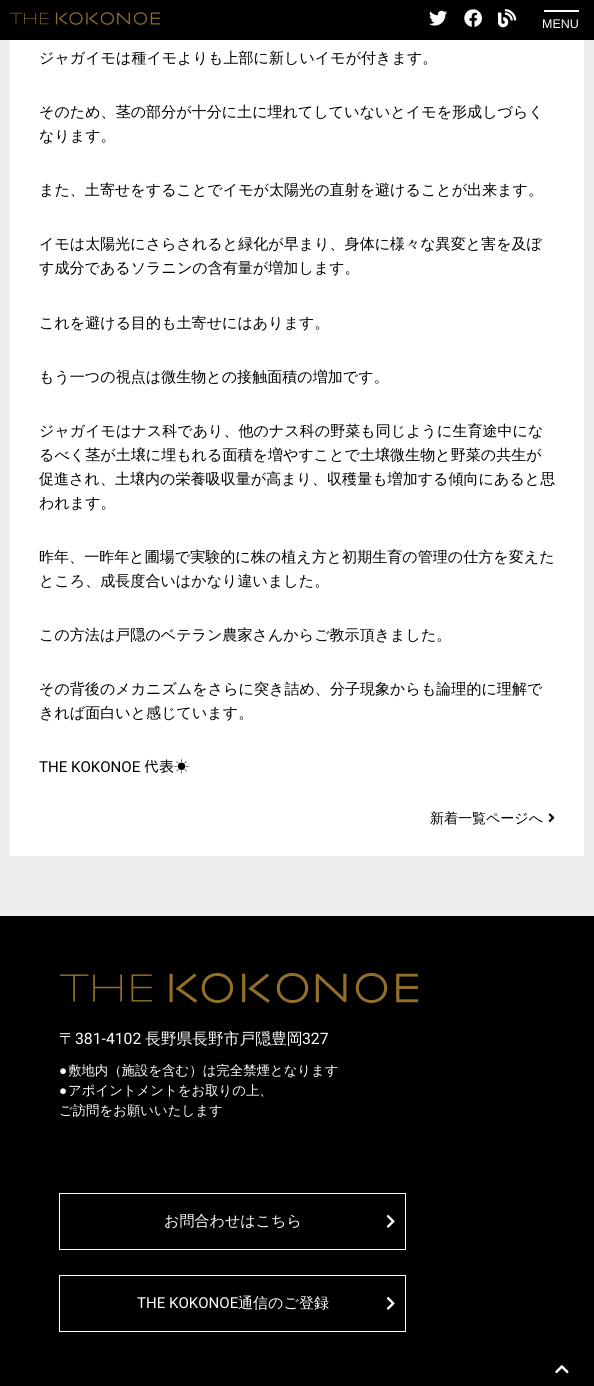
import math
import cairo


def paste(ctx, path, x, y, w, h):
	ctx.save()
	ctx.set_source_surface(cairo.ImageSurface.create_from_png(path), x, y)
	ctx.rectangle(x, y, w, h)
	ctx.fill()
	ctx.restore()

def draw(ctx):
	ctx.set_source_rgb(0, 0, 0)
	ctx.paint()
	ctx.set_source_rgb(0.933, 0.933, 0.933)
	ctx.new_path()
	ctx.move_to(-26, -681)
	ctx.line_to(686, -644)
	ctx.line_to(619, 647)
	ctx.line_to(-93, 610)
	ctx.close_path()
	ctx.fill()
	ctx.set_source_rgb(0, 0, 0)
	ctx.rectangle(0, 0, 594, 40)
	ctx.fill()
	paste(ctx, 'media/1.png', 10, 12, 150, 13)
	paste(ctx, 'media/2.png', 429, 10, 19, 16)
	paste(ctx, 'media/3.png', 464, 9, 18, 18)
	paste(ctx, 'media/4.png', 498, 9, 19, 19)
	ctx.set_source_rgb(1, 1, 1)
	ctx.rectangle(544, 10, 35, 2)
	ctx.fill()
	ctx.select_font_face('Liberation Sans')
	ctx.set_font_size(12.5)
	ctx.move_to(542, 28)
	ctx.show_text('MENU')
	ctx.set_source_rgb(0.933, 0.933, 0.933)
	ctx.rectangle(0, 614, 594, 302)
	ctx.fill()
	ctx.set_source_rgb(1, 1, 1)
	ctx.rectangle(10, 40, 574, 816)
	ctx.fill()
	ctx.select_font_face('WenQuanYi Zen Hei Medium')
	ctx.set_font_size(15.05)
	ctx.set_source_rgb(0, 0, 0)
	for x, y, s in [
		(39, 63, 'ジャガイモは種イモよりも上部に新しいイモが付きます。'),
		(39, 117, 'そのため、茎の部分が十分に土に埋れてしていないとイモを形成しづらく'),
		(39, 141, 'なります。'),
		(39, 195, 'また、土寄せをすることでイモが太陽光の直射を避けることが出来ます。'),
		(39, 249, 'イモは太陽光にさらされると緑化が早まり、身体に様々な異変と害を及ぼ'),
		(39, 273, 'す成分であるソラニンの含有量が増加します。'),
		(39, 328, 'これを避ける目的も土寄せにはあります。'),
		(39, 382, 'もう一つの視点は微生物との接触面積の増加です。'),
		(39, 436, 'ジャガイモはナス科であり、他のナス科の野菜も同じように生育途中にな'),
		(39, 460, 'るべく茎が土壌に埋もれる面積を増やすことで土壌微生物と野菜の共生が'),
		(39, 484, '促進され、土壌内の栄養吸収量が高まり、収穫量も増加する傾向にあると思'),
		(39, 508, 'われます。'),
		(39, 562, '昨年、一昨年と圃場で実験的に株の植え方と初期生育の管理の仕方を変えた'),
		(39, 586, 'ところ、成長度合いはかなり違いました。'),
		(39, 640, 'この方法は戸隠のベテラン農家さんからご教示頂きました。'),
		(39, 694, 'その背後のメカニズムをさらに突き詰め、分子現象からも論理的に理解で'),
		(39, 718, 'きれば面白いと感じています。'),
	]:
		ctx.move_to(x, y)
		ctx.show_text(s)
	ctx.select_font_face('Roboto')
	ctx.move_to(39, 772)
	ctx.show_text('THE KOKONOE')
	ctx.select_font_face('IPAPGothic')
	ctx.move_to(144, 772)
	ctx.show_text('代表☀')
	ctx.select_font_face('WenQuanYi Zen Hei Medium')
	ctx.set_font_size(14)
	ctx.move_to(430, 823)
	ctx.show_text('新着一覧ページへ')
	paste(ctx, 'media/5.png', 548, 813, 7, 10)
	paste(ctx, 'media/6.png', 59, 973, 360, 30)
	ctx.set_font_size(15.75)
	ctx.set_source_rgb(1, 1, 1)
	ctx.move_to(59, 1044)
	ctx.show_text('〒')
	ctx.select_font_face('Roboto')
	ctx.move_to(75, 1044)
	ctx.show_text('381-4102')
	ctx.select_font_face('WenQuanYi Zen Hei Medium')
	ctx.move_to(145, 1044)
	ctx.show_text('長野県長野市戸隠豊岡')
	ctx.select_font_face('Roboto')
	ctx.move_to(302, 1044)
	ctx.show_text('327')
	ctx.select_font_face('Liberation Sans')
	ctx.set_font_size(13.4)
	ctx.move_to(59, 1075)
	ctx.show_text('●')
	ctx.select_font_face('WenQuanYi Zen Hei Medium')
	ctx.move_to(68, 1075)
	ctx.show_text('敷地内（施設を含む）は完全禁煙となります')
	ctx.select_font_face('Liberation Sans')
	ctx.move_to(59, 1095)
	ctx.show_text('●')
	ctx.select_font_face('WenQuanYi Zen Hei Medium')
	ctx.move_to(68, 1095)
	ctx.show_text('アポイントメントをお取りの上、')
	ctx.move_to(59, 1115)
	ctx.show_text('ご訪問をお願いいたします')
	ctx.rectangle(59.5, 1193.5, 346, 56)
	ctx.set_line_width(1)
	ctx.stroke()
	ctx.set_font_size(15.05)
	ctx.move_to(164, 1226)
	ctx.show_text('お問合わせはこちら')
	paste(ctx, 'media/7.png', 386, 1215, 9, 13)
	ctx.rectangle(59.5, 1275.5, 346, 56)
	ctx.stroke()
	ctx.select_font_face('Roboto')
	ctx.move_to(137, 1308)
	ctx.show_text('THE KOKONOE')
	ctx.select_font_face('WenQuanYi Zen Hei Medium')
	ctx.move_to(238, 1308)
	ctx.show_text('通信のご登録')
	paste(ctx, 'media/7.png', 386, 1297, 9, 13)
	paste(ctx, 'media/8.png', 555, 1365, 14, 9)


surface = cairo.ImageSurface(cairo.FORMAT_RGB24, 594, 1386)
ctx = cairo.Context(surface)
options = cairo.FontOptions()
options.set_hint_metrics(cairo.HINT_METRICS_OFF)
options.set_hint_style(cairo.HINT_STYLE_NONE)
ctx.set_font_options(options)
ctx.set_miter_limit(4)
draw(ctx)
surface.write_to_png('image.png')
